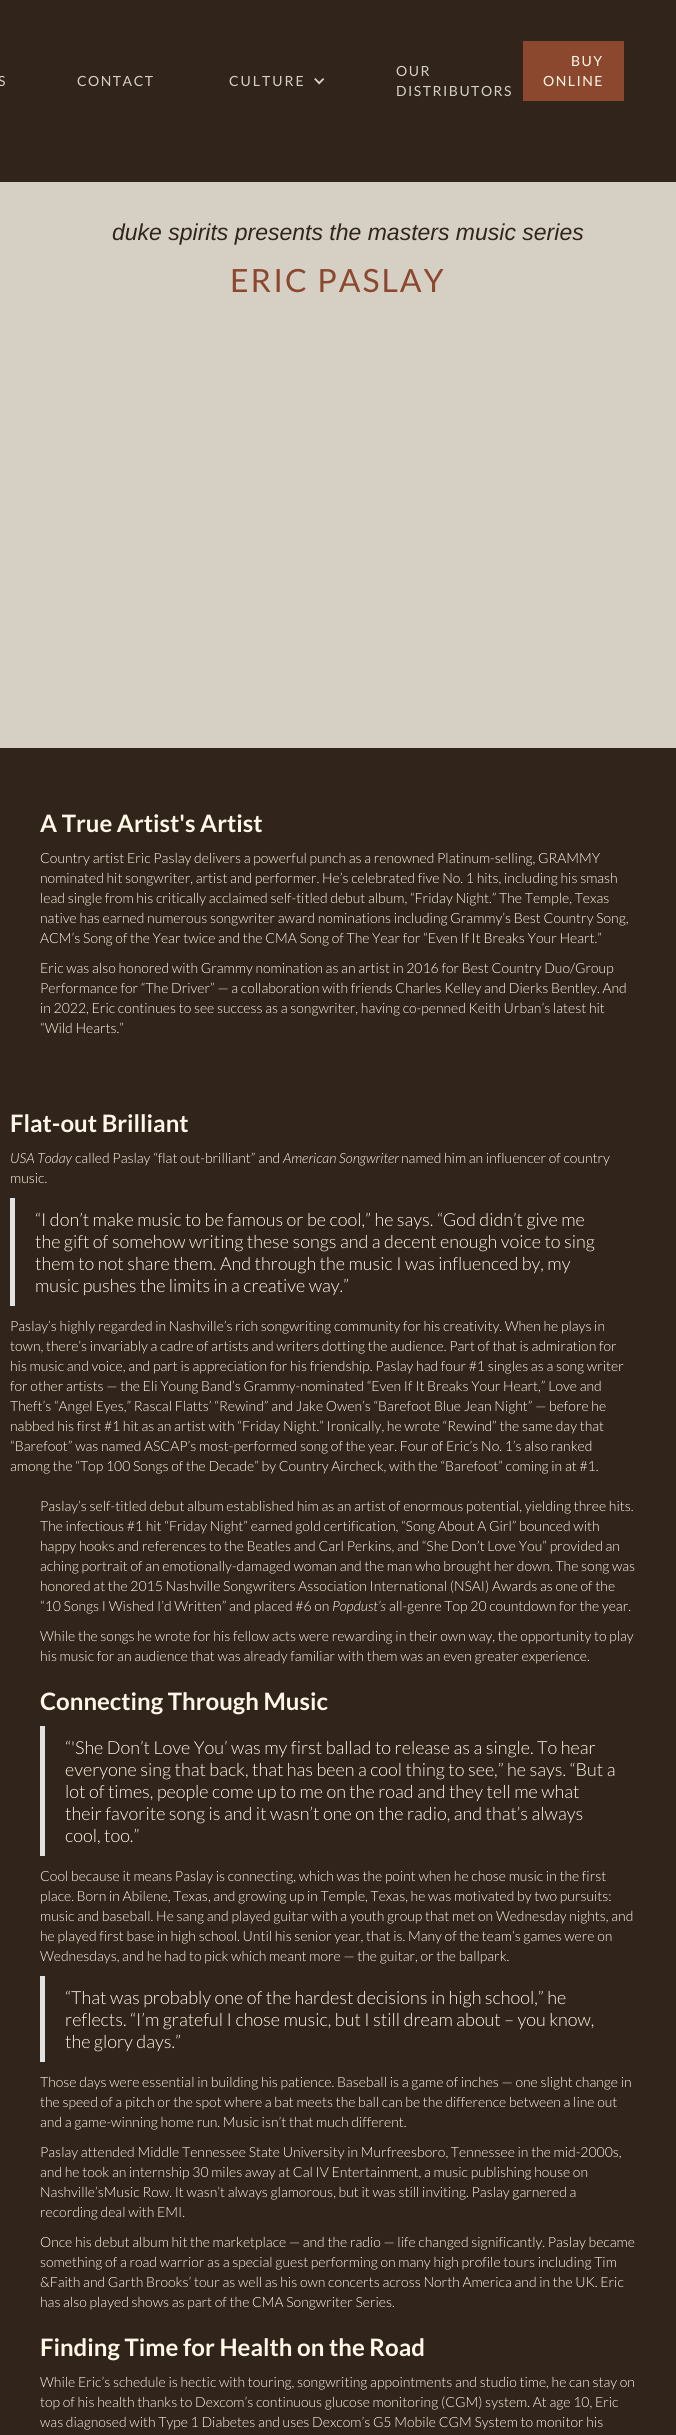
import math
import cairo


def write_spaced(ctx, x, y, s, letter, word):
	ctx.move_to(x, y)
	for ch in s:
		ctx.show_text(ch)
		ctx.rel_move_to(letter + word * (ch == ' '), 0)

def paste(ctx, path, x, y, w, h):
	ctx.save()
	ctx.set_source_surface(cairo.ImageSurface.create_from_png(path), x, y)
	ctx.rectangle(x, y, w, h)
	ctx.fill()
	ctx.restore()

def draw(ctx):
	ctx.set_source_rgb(0.192, 0.141, 0.102)
	ctx.paint()
	ctx.select_font_face('Lato')
	ctx.set_font_size(14)
	ctx.set_source_rgb(0.839, 0.816, 0.769)
	write_spaced(ctx, -2, 86, 'S', 1.5, 0)
	write_spaced(ctx, 77, 86, 'CONTACT', 1.5, 0)
	write_spaced(ctx, 229, 86, 'CULTURE', 2, 0)
	paste(ctx, 'media/1.png', 314, 78, 11, 7)
	write_spaced(ctx, 396, 76, 'OUR', 1.5, 0)
	write_spaced(ctx, 396, 96, 'DISTRIBUTORS', 1.5, 0)
	ctx.set_source_rgb(0.549, 0.282, 0.18)
	ctx.rectangle(523, 41, 101, 60)
	ctx.fill()
	ctx.set_source_rgb(1, 0.969, 0.91)
	write_spaced(ctx, 571, 66, 'BUY', 1.5, 0)
	write_spaced(ctx, 543, 86, 'ONLINE', 1.5, 0)
	ctx.set_source_rgb(0.839, 0.816, 0.769)
	ctx.rectangle(0, 182, 676, 566)
	ctx.fill()
	ctx.select_font_face('Liberation Sans', cairo.FONT_SLANT_ITALIC)
	ctx.set_font_size(23)
	ctx.set_source_rgb(0.192, 0.141, 0.102)
	ctx.move_to(112, 240)
	ctx.show_text('duke spirits presents the masters music series')
	ctx.select_font_face('Lato')
	ctx.set_font_size(32)
	ctx.set_source_rgb(0.549, 0.282, 0.18)
	write_spaced(ctx, 230, 292, 'ERIC PASLAY', 2, 0)
	ctx.select_font_face('Lato', cairo.FONT_SLANT_NORMAL, cairo.FONT_WEIGHT_BOLD)
	ctx.set_font_size(24)
	ctx.set_source_rgb(1, 0.969, 0.91)
	ctx.move_to(40, 832)
	ctx.show_text('A True Artist\'s Artist')
	ctx.select_font_face('Lato Light')
	ctx.set_font_size(14)
	for x, y, s in [
		(40, 863, 'Country artist Eric Paslay delivers a powerful punch as a renowned Platinum-selling, GRAMMY'),
		(40, 883, 'nominated hit songwriter, artist and performer. He’s celebrated five No. 1 hits, including his smash'),
		(40, 903, 'lead single from his critically acclaimed self-titled debut album, “Friday Night.” The Temple, Texas'),
		(40, 923, 'native has earned numerous songwriter award nominations including Grammy’s Best Country Song,'),
		(40, 943, 'ACM’s Song of the Year twice and the CMA Song of The Year for “Even If It Breaks Your Heart.”'),
		(40, 973, 'Eric was also honored with Grammy nomination as an artist in 2016 for Best Country Duo/Group'),
		(40, 993, 'Performance for “The Driver” — a collaboration with friends Charles Kelley and Dierks Bentley. And'),
		(40, 1013, 'in 2022, Eric continues to see success as a songwriter, having co-penned Keith Urban’s latest hit'),
		(40, 1033, '“Wild Hearts.”'),
	]:
		ctx.move_to(x, y)
		ctx.show_text(s)
	ctx.select_font_face('Lato', cairo.FONT_SLANT_NORMAL, cairo.FONT_WEIGHT_BOLD)
	ctx.set_font_size(24)
	ctx.move_to(10, 1132)
	ctx.show_text('Flat-out Brilliant')
	ctx.select_font_face('Lato Light', cairo.FONT_SLANT_ITALIC)
	ctx.set_font_size(14)
	ctx.move_to(10, 1163)
	ctx.show_text('USA Today')
	ctx.select_font_face('Lato Light')
	ctx.move_to(75, 1163)
	ctx.show_text('called Paslay “flat out-brilliant” and')
	ctx.select_font_face('Lato Light', cairo.FONT_SLANT_ITALIC)
	ctx.move_to(283, 1163)
	ctx.show_text('American Songwriter')
	ctx.select_font_face('Lato Light')
	ctx.move_to(401, 1163)
	ctx.show_text('named him an influencer of country')
	ctx.move_to(10, 1183)
	ctx.show_text('music.')
	ctx.set_source_rgb(0.886, 0.886, 0.886)
	ctx.rectangle(10, 1198, 5, 108)
	ctx.fill()
	ctx.set_font_size(18)
	ctx.set_source_rgb(1, 0.969, 0.91)
	for x, y, s in [
		(35, 1226, '“I don’t make music to be famous or be cool,” he says. “God didn’t give me'),
		(35, 1248, 'the gift of somehow writing these songs and a decent enough voice to sing'),
		(35, 1270, 'them to not share them. And through the music I was influenced by, my'),
		(35, 1292, 'music pushes the limits in a creative way.”'),
	]:
		ctx.move_to(x, y)
		ctx.show_text(s)
	ctx.set_font_size(14)
	for x, y, s in [
		(10, 1331, 'Paslay’s highly regarded in Nashville’s rich songwriting community for his creativity. When he plays in'),
		(10, 1351, 'town, there’s invariably a cadre of artists and writers dotting the audience. Part of that is admiration for'),
		(10, 1371, 'his music and voice, and part is appreciation for his friendship. Paslay had four #1 singles as a song writer'),
		(10, 1391, 'for other artists — the Eli Young Band’s Grammy-nominated “Even If It Breaks Your Heart,” Love and'),
		(10, 1411, 'Theft’s “Angel Eyes,” Rascal Flatts’ “Rewind” and Jake Owen’s “Barefoot Blue Jean Night” — before he'),
		(10, 1431, 'nabbed his first #1 hit as an artist with “Friday Night.” Ironically, he wrote “Rewind” the same day that'),
		(10, 1451, '“Barefoot” was named ASCAP’s most-performed song of the year. Four of Eric’s No. 1’s also ranked'),
		(10, 1471, 'among the “Top 100 Songs of the Decade” by Country Aircheck, with the “Barefoot” coming in at #1.'),
		(40, 1511, 'Paslay’s self-titled debut album established him as an artist of enormous potential, yielding three hits.'),
		(40, 1531, 'The infectious #1 hit “Friday Night” earned gold certification, “Song About A Girl” bounced with'),
		(40, 1551, 'happy hooks and references to the Beatles and Carl Perkins, and “She Don’t Love You” provided an'),
		(40, 1571, 'aching portrait of an emotionally-damaged woman and the man who brought her down. The song was'),
		(40, 1591, 'honored at the 2015 Nashville Songwriters Association International (NSAI) Awards as one of the'),
		(40, 1611, '“10 Songs I Wished I’d Written” and placed #6 on'),
	]:
		ctx.move_to(x, y)
		ctx.show_text(s)
	ctx.select_font_face('Lato Light', cairo.FONT_SLANT_ITALIC)
	ctx.move_to(332, 1611)
	ctx.show_text('Popdust’s')
	ctx.select_font_face('Lato Light')
	for x, y, s in [
		(389, 1611, 'all-genre Top 20 countdown for the year.'),
		(40, 1641, 'While the songs he wrote for his fellow acts were rewarding in their own way, the opportunity to play'),
		(40, 1661, 'his music for an audience that was already familiar with them was an even greater experience.'),
	]:
		ctx.move_to(x, y)
		ctx.show_text(s)
	ctx.select_font_face('Lato', cairo.FONT_SLANT_NORMAL, cairo.FONT_WEIGHT_BOLD)
	ctx.set_font_size(24)
	ctx.move_to(40, 1710)
	ctx.show_text('Connecting Through Music')
	ctx.set_source_rgb(0.886, 0.886, 0.886)
	ctx.rectangle(40, 1726, 5, 130)
	ctx.fill()
	ctx.select_font_face('Lato Light')
	ctx.set_font_size(18)
	ctx.set_source_rgb(1, 0.969, 0.91)
	for x, y, s in [
		(65, 1754, '“\'She Don’t Love You’ was my first ballad to release as a single. To hear'),
		(65, 1776, 'everyone sing that back, that has been a cool thing to see,” he says. “But a'),
		(65, 1798, 'lot of times, people come up to me on the road and they tell me what'),
		(65, 1820, 'their favorite song is and it wasn’t one on the radio, and that’s always'),
		(65, 1842, 'cool, too.”'),
	]:
		ctx.move_to(x, y)
		ctx.show_text(s)
	ctx.set_font_size(14)
	for x, y, s in [
		(40, 1881, 'Cool because it means Paslay is connecting, which was the point when he chose music in the first'),
		(40, 1901, 'place. Born in Abilene, Texas, and growing up in Temple, Texas, he was motivated by two pursuits:'),
		(40, 1921, 'music and baseball. He sang and played guitar with a youth group that met on Wednesday nights, and'),
		(40, 1941, 'he played first base in high school. Until his senior year, that is. Many of the team’s games were on'),
		(40, 1961, 'Wednesdays, and he had to pick which meant more — the guitar, or the ballpark.'),
	]:
		ctx.move_to(x, y)
		ctx.show_text(s)
	ctx.set_source_rgb(0.886, 0.886, 0.886)
	ctx.rectangle(40, 1976, 5, 86)
	ctx.fill()
	ctx.set_font_size(18)
	ctx.set_source_rgb(1, 0.969, 0.91)
	for x, y, s in [
		(65, 2004, '“That was probably one of the hardest decisions in high school,” he'),
		(65, 2026, 'reflects. “I’m grateful I chose music, but I still dream about – you know,'),
		(65, 2048, 'the glory days.”'),
	]:
		ctx.move_to(x, y)
		ctx.show_text(s)
	ctx.set_font_size(14)
	for x, y, s in [
		(40, 2087, 'Those days were essential in building his patience. Baseball is a game of inches — one slight change in'),
		(40, 2107, 'the speed of a pitch or the spot where a bat meets the ball can be the difference between a line out'),
		(40, 2127, 'and a game-winning home run. Music isn’t that much different.'),
		(40, 2157, 'Paslay attended Middle Tennessee State University in Murfreesboro, Tennessee in the mid-2000s,'),
		(40, 2177, 'and he took an internship 30 miles away at Cal IV Entertainment, a music publishing house on'),
		(40, 2197, 'Nashville’sMusic Row. It wasn’t always glamorous, but it was still inviting. Paslay garnered a'),
		(40, 2217, 'recording deal with EMI.'),
		(40, 2247, 'Once his debut album hit the marketplace — and the radio — life changed significantly. Paslay became'),
		(40, 2267, 'something of a road warrior as a special guest performing on many high profile tours including Tim'),
		(40, 2287, '&Faith and Garth Brooks’ tour as well as his own concerts across North America and in the UK. Eric'),
		(40, 2307, 'has also played shows as part of the CMA Songwriter Series.'),
	]:
		ctx.move_to(x, y)
		ctx.show_text(s)
	ctx.select_font_face('Lato', cairo.FONT_SLANT_NORMAL, cairo.FONT_WEIGHT_BOLD)
	ctx.set_font_size(24)
	ctx.move_to(40, 2356)
	ctx.show_text('Finding Time for Health on the Road')
	ctx.select_font_face('Lato Light')
	ctx.set_font_size(14)
	for x, y, s in [
		(40, 2387, 'While Eric’s schedule is hectic with touring, songwriting appointments and studio time, he can stay on'),
		(40, 2407, 'top of his health thanks to Dexcom’s continuous glucose monitoring (CGM) system. At age 10, Eric'),
		(40, 2427, 'was diagnosed with Type 1 Diabetes and uses Dexcom’s G5 Mobile CGM System to monitor his'),
	]:
		ctx.move_to(x, y)
		ctx.show_text(s)


surface = cairo.ImageSurface(cairo.FORMAT_RGB24, 676, 2435)
ctx = cairo.Context(surface)
options = cairo.FontOptions()
options.set_hint_metrics(cairo.HINT_METRICS_OFF)
options.set_hint_style(cairo.HINT_STYLE_NONE)
ctx.set_font_options(options)
ctx.set_miter_limit(4)
draw(ctx)
surface.write_to_png('image.png')
